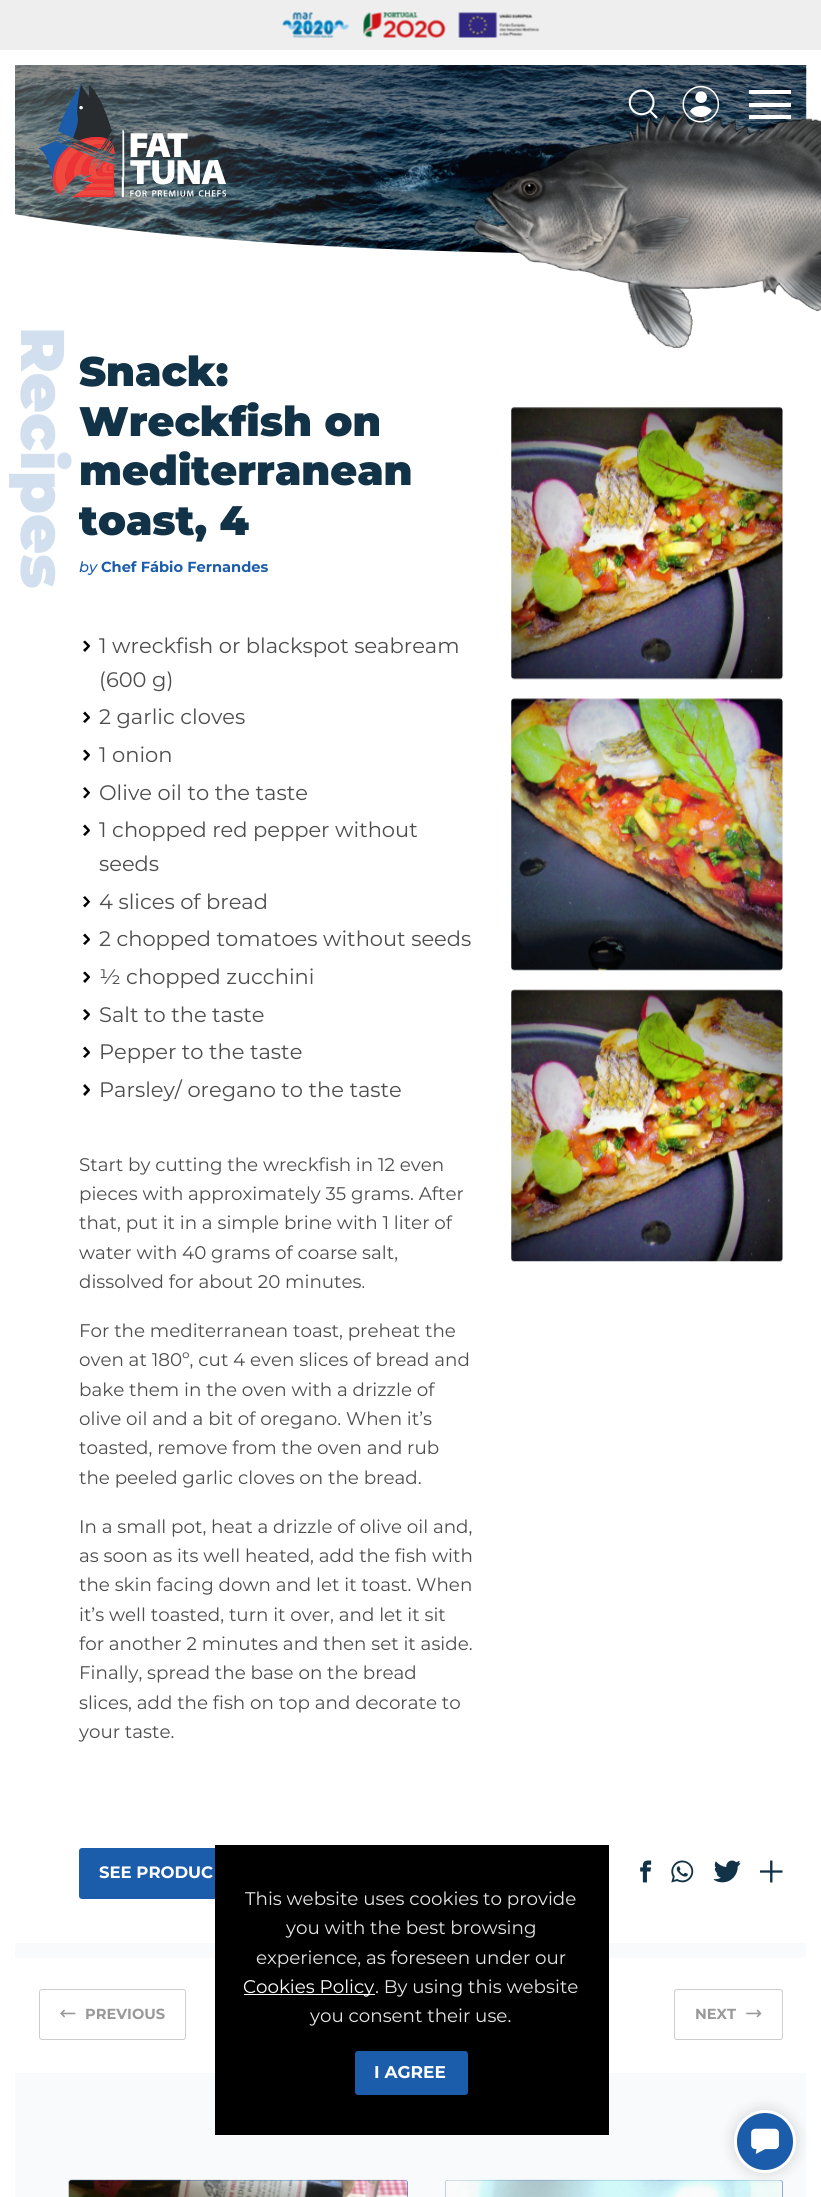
import math
import cairo


def round_path(ctx, x, y, w, h, r):
	ctx.new_sub_path()
	for i, (u, v) in enumerate([(x + w - r, y + h - r), (x + r, y + h - r), (x + r, y + r), (x + w - r, y + r)]):
		ctx.arc(u, v, r, i * math.pi / 2, (i + 1) * math.pi / 2)
	ctx.close_path()

def blur_box(ctx, x, y, w, h, r, blur, alpha):
	ctx.push_group_with_content(cairo.CONTENT_ALPHA)
	ctx.set_operator(cairo.OPERATOR_SOURCE)
	for i in range(15, -16, -2):
		e = blur * i / 6
		if min(w, h) + 2 * e > 0:
			ctx.set_source_rgba(0, 0, 0, alpha * math.erfc((i - 1) / 8.5) / 2)
			round_path(ctx, x - e, y - e, w + 2 * e, h + 2 * e, max(0, min(r + e + blur * .6, min(w, h) / 2 + e)))
			ctx.fill()
	ctx.mask(ctx.pop_group())

def paste(ctx, path, x, y, w, h):
	ctx.save()
	ctx.set_source_surface(cairo.ImageSurface.create_from_png(path), x, y)
	ctx.rectangle(x, y, w, h)
	ctx.fill()
	ctx.restore()

def draw(ctx):
	ctx.set_source_rgb(1, 1, 1)
	ctx.paint()
	ctx.set_source_rgb(0.933, 0.933, 0.933)
	ctx.rectangle(0, 0, 821, 50)
	ctx.fill()
	paste(ctx, 'media/1.png', 282, 12, 258, 26)
	ctx.set_source_rgb(0, 0, 0)
	ctx.rectangle(479, 252, 43, 1)
	ctx.fill()
	paste(ctx, 'media/2.png', 15, 65, 792, 188)
	gradient = cairo.LinearGradient(411, 65, 411, 253)
	gradient.add_color_stop_rgba(0, 0.071, 0.11, 0.192, 0.5)
	gradient.add_color_stop_rgba(1, 0.071, 0.11, 0.192, 0)
	ctx.set_source(gradient)
	ctx.rectangle(15, 65, 791, 180)
	ctx.fill()
	gradient = cairo.LinearGradient(15, 159, 411, 159)
	gradient.add_color_stop_rgba(0, 1, 0.898, 0.71, 0.25)
	gradient.add_color_stop_rgba(1, 1, 0.898, 0.71, 0)
	ctx.set_source(gradient)
	ctx.rectangle(15, 65, 362, 184)
	ctx.fill()
	paste(ctx, 'media/3.png', 39, 85, 187, 113)
	ctx.save()
	ctx.rectangle(15, 214, 791, 39)
	ctx.clip()
	ctx.set_source_rgb(1, 1, 1)
	ctx.set_fill_rule(cairo.FILL_RULE_EVEN_ODD)
	ctx.new_path()
	ctx.move_to(14, 214)
	ctx.curve_to(365, 273, 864, 251, 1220, 247)
	ctx.line_to(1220, 246)
	ctx.line_to(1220, 255)
	ctx.line_to(14, 255)
	ctx.close_path()
	ctx.fill()
	ctx.restore()
	paste(ctx, 'media/4.png', 474, 109, 347, 239)
	paste(ctx, 'media/5.png', 628, 89, 30, 30)
	paste(ctx, 'media/6.png', 682, 85, 38, 38)
	ctx.set_source_rgb(1, 1, 1)
	ctx.rectangle(749, 90, 42, 4)
	ctx.rectangle(749, 103, 42, 4)
	ctx.rectangle(749, 115, 42, 4)
	ctx.fill()
	ctx.select_font_face('Montserrat Black')
	ctx.set_font_size(61.5)
	ctx.set_source_rgb(0.824, 0.875, 0.933)
	ctx.save()
	ctx.translate(21, 327)
	ctx.rotate(90 * math.pi / 180)
	ctx.move_to(0, 0)
	ctx.show_text('Recipes')
	ctx.restore()
	ctx.set_font_size(41.25)
	ctx.set_source_rgb(0.071, 0.196, 0.278)
	for x, y, s in [
		(79, 386, 'Snack:'),
		(79, 436, 'Wreckfish on'),
		(79, 485, 'mediterranean'),
		(79, 535, 'toast, 4'),
	]:
		ctx.move_to(x, y)
		ctx.show_text(s)
	ctx.select_font_face('Montserrat Medium', cairo.FONT_SLANT_ITALIC)
	ctx.set_font_size(14.6)
	ctx.set_source_rgb(0.11, 0.365, 0.671)
	ctx.move_to(79, 572)
	ctx.show_text('by')
	ctx.select_font_face('Montserrat', cairo.FONT_SLANT_NORMAL, cairo.FONT_WEIGHT_BOLD)
	ctx.move_to(101, 572)
	ctx.show_text('Chef Fábio Fernandes')
	ctx.set_source_rgb(0, 0, 0)
	ctx.new_path()
	ctx.move_to(85, 640.5)
	ctx.line_to(90, 645.5)
	ctx.line_to(88.5, 647.5)
	ctx.line_to(83, 642)
	ctx.close_path()
	ctx.fill()
	ctx.select_font_face('Montserrat')
	ctx.set_font_size(21)
	ctx.set_source_rgb(0.302, 0.302, 0.302)
	ctx.move_to(99, 653)
	ctx.show_text('1 wreckfish or blackspot seabream')
	ctx.set_source_rgb(0, 0, 0)
	ctx.new_path()
	ctx.move_to(83, 650)
	ctx.line_to(88.5, 645)
	ctx.line_to(90, 646.5)
	ctx.line_to(85, 652)
	ctx.close_path()
	ctx.fill()
	ctx.set_source_rgb(0.302, 0.302, 0.302)
	ctx.move_to(99, 687)
	ctx.show_text('(600 g)')
	ctx.set_source_rgb(0, 0, 0)
	ctx.new_path()
	ctx.move_to(85, 711.5)
	ctx.line_to(90, 717)
	ctx.line_to(88.5, 718.5)
	ctx.line_to(83, 713.5)
	ctx.close_path()
	ctx.fill()
	ctx.set_source_rgb(0.302, 0.302, 0.302)
	ctx.move_to(99, 724)
	ctx.show_text('2 garlic cloves')
	ctx.set_source_rgb(0, 0, 0)
	ctx.new_path()
	ctx.move_to(83, 721.5)
	ctx.line_to(88.5, 716)
	ctx.line_to(90, 718)
	ctx.line_to(85, 723)
	ctx.close_path()
	ctx.fill()
	ctx.new_path()
	ctx.move_to(85, 749.5)
	ctx.line_to(90, 754.5)
	ctx.line_to(88.5, 756.5)
	ctx.line_to(83, 751)
	ctx.close_path()
	ctx.fill()
	ctx.set_source_rgb(0.302, 0.302, 0.302)
	ctx.move_to(99, 762)
	ctx.show_text('1 onion')
	ctx.set_source_rgb(0, 0, 0)
	ctx.new_path()
	ctx.move_to(83, 759)
	ctx.line_to(88.5, 754)
	ctx.line_to(90, 755.5)
	ctx.line_to(85, 761)
	ctx.close_path()
	ctx.fill()
	ctx.new_path()
	ctx.move_to(85, 787)
	ctx.line_to(90, 792.5)
	ctx.line_to(88.5, 794)
	ctx.line_to(83, 788.5)
	ctx.close_path()
	ctx.fill()
	ctx.set_source_rgb(0.302, 0.302, 0.302)
	ctx.move_to(99, 800)
	ctx.show_text('Olive oil to the taste')
	ctx.set_source_rgb(0, 0, 0)
	ctx.new_path()
	ctx.move_to(83, 797)
	ctx.line_to(88.5, 791.5)
	ctx.line_to(90, 793)
	ctx.line_to(85, 798.5)
	ctx.close_path()
	ctx.fill()
	ctx.new_path()
	ctx.move_to(85, 824.5)
	ctx.line_to(90, 830)
	ctx.line_to(88.5, 831.5)
	ctx.line_to(83, 826.5)
	ctx.close_path()
	ctx.fill()
	ctx.set_source_rgb(0.302, 0.302, 0.302)
	ctx.move_to(99, 837)
	ctx.show_text('1 chopped red pepper without')
	ctx.set_source_rgb(0, 0, 0)
	ctx.new_path()
	ctx.move_to(83, 834.5)
	ctx.line_to(88.5, 829)
	ctx.line_to(90, 831)
	ctx.line_to(85, 836)
	ctx.close_path()
	ctx.fill()
	ctx.set_source_rgb(0.302, 0.302, 0.302)
	ctx.move_to(99, 871)
	ctx.show_text('seeds')
	ctx.set_source_rgb(0, 0, 0)
	ctx.new_path()
	ctx.move_to(85, 896)
	ctx.line_to(90, 901.5)
	ctx.line_to(88.5, 903)
	ctx.line_to(83, 897.5)
	ctx.close_path()
	ctx.fill()
	ctx.set_source_rgb(0.302, 0.302, 0.302)
	ctx.move_to(99, 909)
	ctx.show_text('4 slices of bread')
	ctx.set_source_rgb(0, 0, 0)
	ctx.new_path()
	ctx.move_to(83, 905.5)
	ctx.line_to(88.5, 900.5)
	ctx.line_to(90, 902)
	ctx.line_to(85, 907.5)
	ctx.close_path()
	ctx.fill()
	ctx.new_path()
	ctx.move_to(85, 933.5)
	ctx.line_to(90, 939)
	ctx.line_to(88.5, 940.5)
	ctx.line_to(83, 935.5)
	ctx.close_path()
	ctx.fill()
	ctx.set_source_rgb(0.302, 0.302, 0.302)
	ctx.move_to(99, 946)
	ctx.show_text('2 chopped tomatoes without seeds')
	ctx.set_source_rgb(0, 0, 0)
	ctx.new_path()
	ctx.move_to(83, 943.5)
	ctx.line_to(88.5, 938)
	ctx.line_to(90, 940)
	ctx.line_to(85, 945)
	ctx.close_path()
	ctx.fill()
	ctx.new_path()
	ctx.move_to(85, 971.5)
	ctx.line_to(90, 976.5)
	ctx.line_to(88.5, 978.5)
	ctx.line_to(83, 973)
	ctx.close_path()
	ctx.fill()
	ctx.set_source_rgb(0.302, 0.302, 0.302)
	ctx.move_to(99, 984)
	ctx.show_text('½ chopped zucchini')
	ctx.set_source_rgb(0, 0, 0)
	ctx.new_path()
	ctx.move_to(83, 981)
	ctx.line_to(88.5, 976)
	ctx.line_to(90, 977.5)
	ctx.line_to(85, 983)
	ctx.close_path()
	ctx.fill()
	ctx.new_path()
	ctx.move_to(85, 1009)
	ctx.line_to(90, 1014)
	ctx.line_to(88.5, 1016)
	ctx.line_to(83, 1010.5)
	ctx.close_path()
	ctx.fill()
	ctx.set_source_rgb(0.302, 0.302, 0.302)
	ctx.move_to(99, 1022)
	ctx.show_text('Salt to the taste')
	ctx.set_source_rgb(0, 0, 0)
	ctx.new_path()
	ctx.move_to(83, 1018.5)
	ctx.line_to(88.5, 1013.5)
	ctx.line_to(90, 1015)
	ctx.line_to(85, 1020.5)
	ctx.close_path()
	ctx.fill()
	ctx.new_path()
	ctx.move_to(85, 1046.5)
	ctx.line_to(90, 1052)
	ctx.line_to(88.5, 1053.5)
	ctx.line_to(83, 1048.5)
	ctx.close_path()
	ctx.fill()
	ctx.set_source_rgb(0.302, 0.302, 0.302)
	ctx.move_to(99, 1059)
	ctx.show_text('Pepper to the taste')
	ctx.set_source_rgb(0, 0, 0)
	ctx.new_path()
	ctx.move_to(83, 1056.5)
	ctx.line_to(88.5, 1051)
	ctx.line_to(90, 1053)
	ctx.line_to(85, 1058)
	ctx.close_path()
	ctx.fill()
	ctx.new_path()
	ctx.move_to(85, 1084)
	ctx.line_to(90, 1089.5)
	ctx.line_to(88.5, 1091.5)
	ctx.line_to(83, 1086)
	ctx.close_path()
	ctx.fill()
	ctx.set_source_rgb(0.302, 0.302, 0.302)
	ctx.move_to(99, 1097)
	ctx.show_text('Parsley/ oregano to the taste')
	ctx.set_source_rgb(0, 0, 0)
	ctx.new_path()
	ctx.move_to(83, 1094)
	ctx.line_to(88.5, 1088.5)
	ctx.line_to(90, 1090.5)
	ctx.line_to(85, 1096)
	ctx.close_path()
	ctx.fill()
	ctx.set_font_size(18.3)
	ctx.set_source_rgb(0.302, 0.302, 0.302)
	for x, y, s in [
		(79, 1171, 'Start by cutting the wreckfish in 12 even'),
		(79, 1200, 'pieces with approximately 35 grams. After'),
		(79, 1229, 'that, put it in a simple brine with 1 liter of'),
		(79, 1259, 'water with 40 grams of coarse salt,'),
		(79, 1288, 'dissolved for about 20 minutes.'),
		(79, 1337, 'For the mediterranean toast, preheat the'),
		(79, 1366, 'oven at 180º, cut 4 even slices of bread and'),
		(79, 1396, 'bake them in the oven with a drizzle of'),
		(79, 1425, 'olive oil and a bit of oregano. When it’s'),
		(79, 1454, 'toasted, remove from the oven and rub'),
		(79, 1484, 'the peeled garlic cloves on the bread.'),
		(79, 1533, 'In a small pot, heat a drizzle of olive oil and,'),
		(79, 1562, 'as soon as its well heated, add the fish with'),
		(79, 1591, 'the skin facing down and let it toast. When'),
		(79, 1621, 'it’s well toasted, turn it over, and let it sit'),
		(79, 1650, 'for another 2 minutes and then set it aside.'),
		(79, 1679, 'Finally, spread the base on the bread'),
		(79, 1709, 'slices, add the fish on top and decorate to'),
		(79, 1738, 'your taste.'),
	]:
		ctx.move_to(x, y)
		ctx.show_text(s)
	paste(ctx, 'media/7.png', 511, 407, 272, 273)
	paste(ctx, 'media/8.png', 511, 698, 272, 273)
	paste(ctx, 'media/9.png', 511, 989, 272, 273)
	ctx.set_source_rgb(0.11, 0.365, 0.671)
	round_path(ctx, 79, 1848, 201, 51, 3)
	ctx.fill()
	ctx.select_font_face('Montserrat', cairo.FONT_SLANT_NORMAL, cairo.FONT_WEIGHT_BOLD)
	ctx.set_font_size(16.5)
	ctx.set_source_rgb(1, 1, 1)
	ctx.move_to(99, 1878)
	ctx.show_text('SEE PRODUC')
	paste(ctx, 'media/10.png', 640, 1860, 12, 23)
	paste(ctx, 'media/11.png', 671, 1860, 23, 23)
	paste(ctx, 'media/12.png', 713, 1860, 28, 23)
	paste(ctx, 'media/13.png', 760, 1860, 23, 23)
	ctx.set_source_rgb(0.973, 0.98, 0.988)
	ctx.rectangle(15, 1943, 791, 15)
	ctx.fill()
	round_path(ctx, 39.5, 1989.5, 146, 50, 2.5)
	ctx.set_source_rgb(0.8, 0.8, 0.8)
	ctx.set_line_width(1)
	ctx.stroke()
	paste(ctx, 'media/14.png', 60, 2009, 16, 9)
	ctx.set_font_size(14.6)
	ctx.set_source_rgb(0.6, 0.6, 0.6)
	ctx.move_to(85, 2019)
	ctx.show_text('PREVIOUS')
	round_path(ctx, 674.5, 1989.5, 108, 50, 2.5)
	ctx.set_source_rgb(0.8, 0.8, 0.8)
	ctx.stroke()
	ctx.set_source_rgb(0.6, 0.6, 0.6)
	ctx.move_to(695, 2019)
	ctx.show_text('NEXT')
	paste(ctx, 'media/15.png', 746, 2009, 16, 9)
	ctx.set_source_rgb(0.973, 0.98, 0.988)
	ctx.rectangle(15, 2073, 791, 124)
	ctx.fill()
	ctx.set_source_rgb(0.11, 0.365, 0.671)
	round_path(ctx, 69, 2180, 339, 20, 3)
	ctx.fill()
	paste(ctx, 'media/16.png', 68, 2179, 340, 18)
	round_path(ctx, 445, 2180, 338, 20, 3)
	ctx.fill()
	paste(ctx, 'media/17.png', 445, 2179, 338, 18)
	ctx.set_source_rgb(0, 0, 0)
	blur_box(ctx, 734, 2110, 62, 63, 31, 7.5, 0.15)
	ctx.set_source_rgb(0.11, 0.365, 0.671)
	round_path(ctx, 735.5, 2111.5, 59, 60, 29.5)
	ctx.fill_preserve()
	ctx.set_source_rgb(1, 1, 1)
	ctx.set_line_width(3)
	ctx.stroke()
	paste(ctx, 'media/18.png', 751, 2128, 28, 26)
	ctx.set_source_rgb(0, 0, 0)
	ctx.rectangle(215, 1845, 394, 290)
	ctx.fill()
	ctx.select_font_face('Montserrat')
	ctx.set_font_size(18.3)
	ctx.set_source_rgb(0.902, 0.902, 0.902)
	for x, y, s in [
		(245, 1905, 'This website uses cookies to provide'),
		(286, 1934, 'you with the best browsing'),
		(256, 1964, 'experience, as foreseen under our'),
	]:
		ctx.move_to(x, y)
		ctx.show_text(s)
	ctx.set_source_rgb(1, 1, 1)
	ctx.rectangle(244, 1994, 131, 1)
	ctx.fill()
	ctx.move_to(243, 1993)
	ctx.show_text('Cookies Policy')
	ctx.set_source_rgb(0.902, 0.902, 0.902)
	ctx.move_to(375, 1993)
	ctx.show_text('. By using this website')
	ctx.move_to(310, 2022)
	ctx.show_text('you consent their use.')
	ctx.set_source_rgb(0.11, 0.365, 0.671)
	round_path(ctx, 355, 2051, 113, 44, 3)
	ctx.fill()
	ctx.select_font_face('Montserrat', cairo.FONT_SLANT_NORMAL, cairo.FONT_WEIGHT_BOLD)
	ctx.set_font_size(17)
	ctx.set_source_rgb(1, 1, 1)
	ctx.move_to(374, 2078)
	ctx.show_text('I AGREE')


surface = cairo.ImageSurface(cairo.FORMAT_RGB24, 821, 2197)
ctx = cairo.Context(surface)
options = cairo.FontOptions()
options.set_hint_metrics(cairo.HINT_METRICS_OFF)
options.set_hint_style(cairo.HINT_STYLE_NONE)
ctx.set_font_options(options)
ctx.set_miter_limit(4)
draw(ctx)
surface.write_to_png('image.png')
